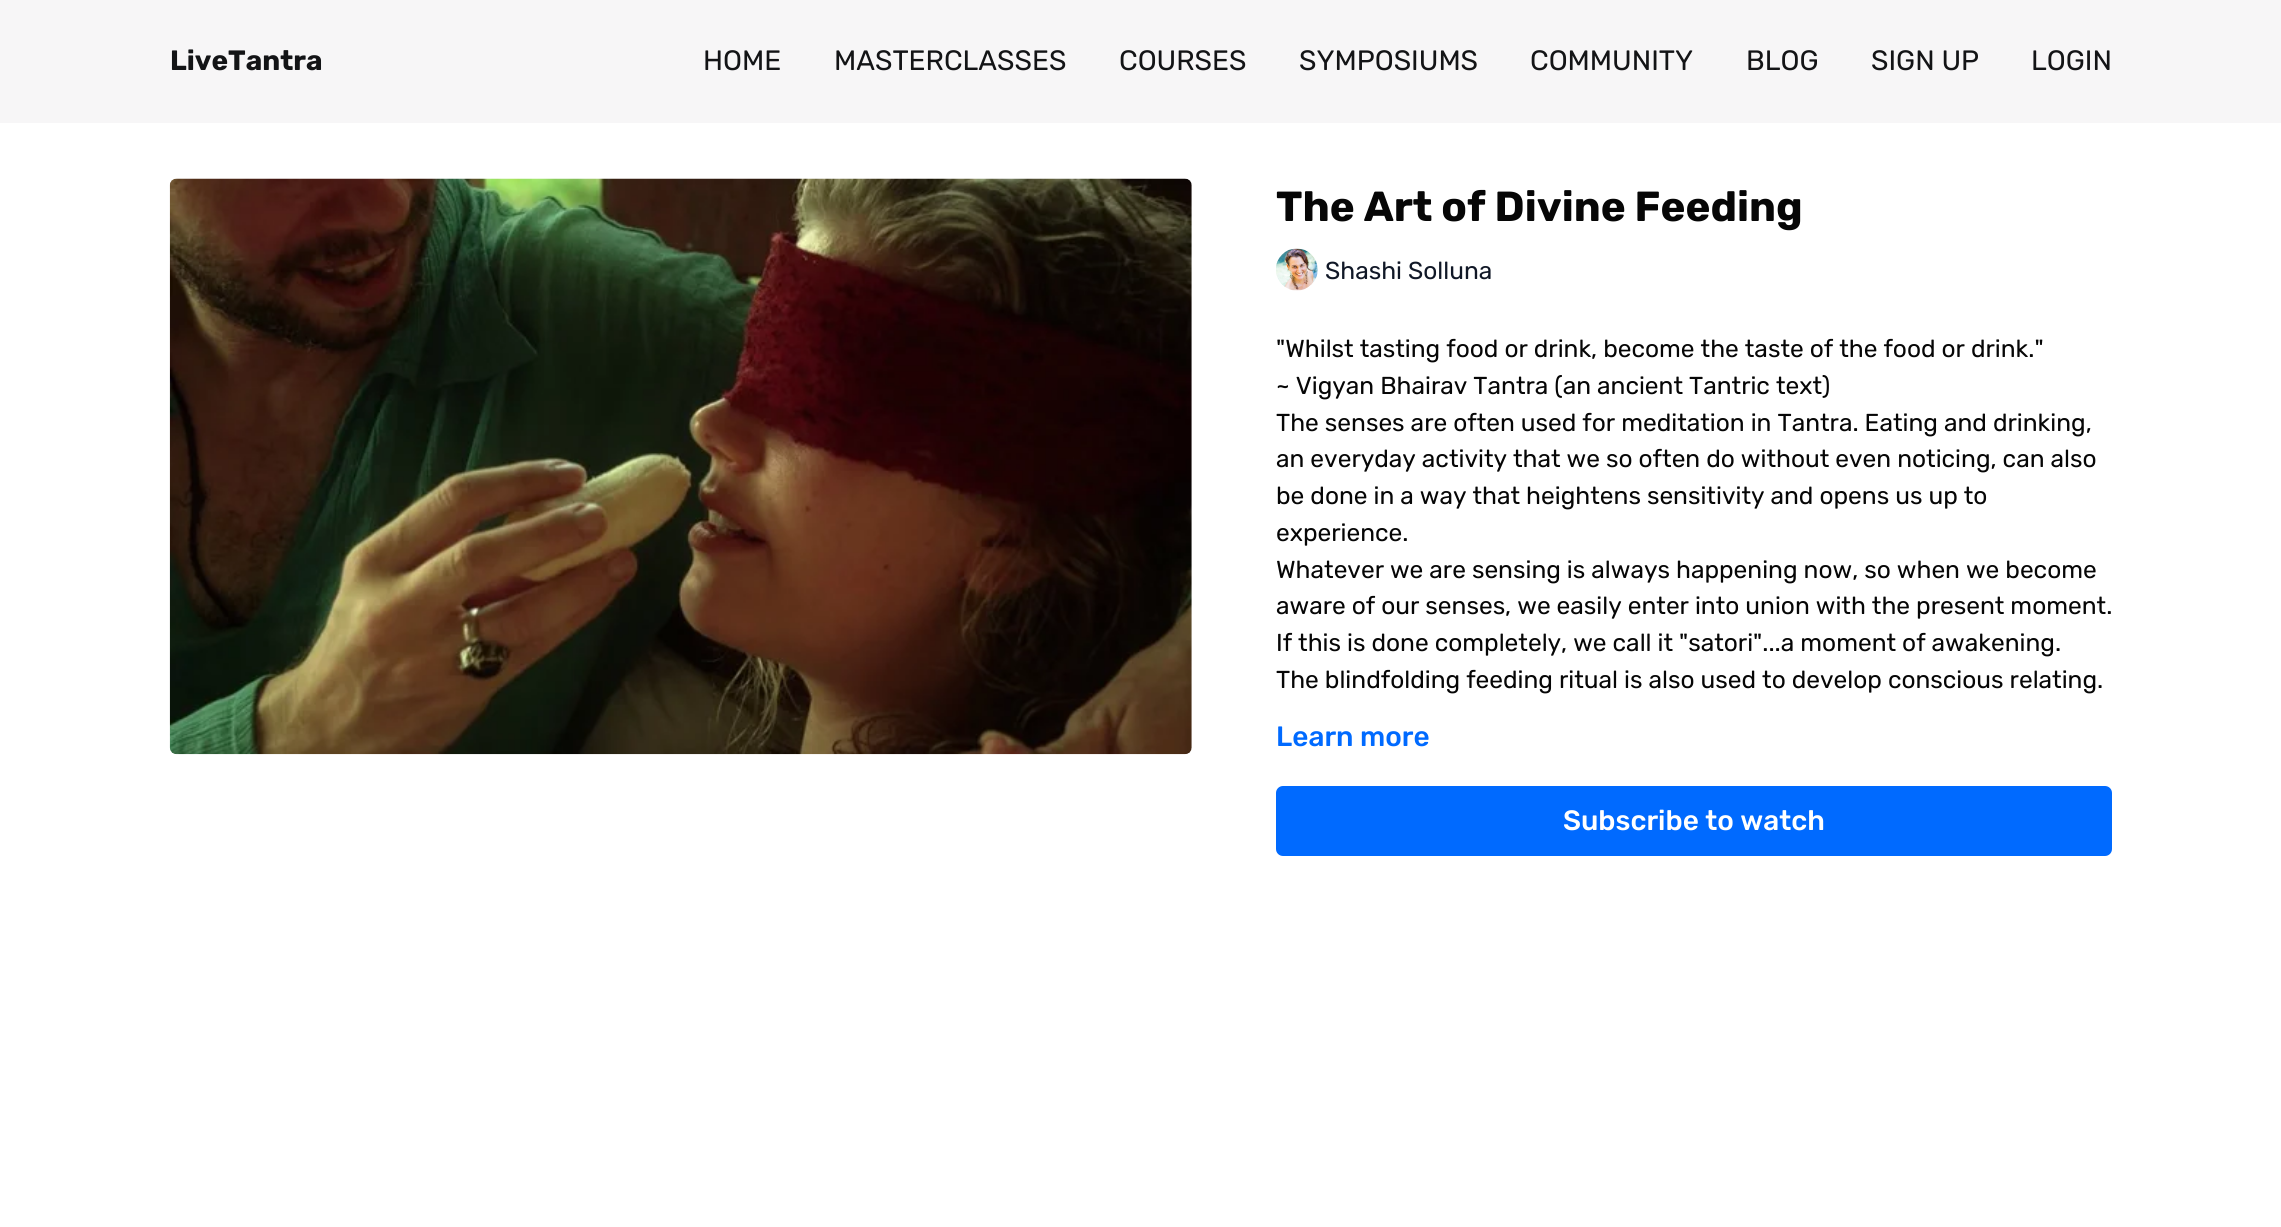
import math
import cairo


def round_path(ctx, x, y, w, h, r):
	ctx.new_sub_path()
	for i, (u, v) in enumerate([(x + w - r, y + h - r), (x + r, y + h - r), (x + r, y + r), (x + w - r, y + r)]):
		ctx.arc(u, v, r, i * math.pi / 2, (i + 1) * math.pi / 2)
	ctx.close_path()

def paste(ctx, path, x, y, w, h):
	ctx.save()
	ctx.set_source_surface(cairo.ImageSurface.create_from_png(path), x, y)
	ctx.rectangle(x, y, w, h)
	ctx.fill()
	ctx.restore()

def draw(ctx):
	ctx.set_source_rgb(1, 1, 1)
	ctx.paint()
	ctx.set_source_rgb(0.965, 0.961, 0.965)
	ctx.rectangle(0, 0, 2281, 123)
	ctx.fill()
	ctx.select_font_face('Rubik', cairo.FONT_SLANT_NORMAL, cairo.FONT_WEIGHT_BOLD)
	ctx.set_font_size(28)
	ctx.set_source_rgb(0.078, 0.082, 0.086)
	ctx.move_to(170, 70)
	ctx.show_text('LiveTantra')
	ctx.select_font_face('Rubik')
	for x, y, s in [
		(703, 70, 'HOME'),
		(834, 70, 'MASTERCLASSES'),
		(1119, 70, 'COURSES'),
		(1299, 70, 'SYMPOSIUMS'),
		(1530, 70, 'COMMUNITY'),
		(1746, 70, 'BLOG'),
		(1871, 70, 'SIGN UP'),
		(2031, 70, 'LOGIN'),
	]:
		ctx.move_to(x, y)
		ctx.show_text(s)
	paste(ctx, 'media/1.png', 169, 178, 1023, 577)
	ctx.select_font_face('Rubik', cairo.FONT_SLANT_NORMAL, cairo.FONT_WEIGHT_BOLD)
	ctx.set_font_size(42)
	ctx.set_source_rgb(0.024, 0.024, 0.024)
	ctx.move_to(1276, 221)
	ctx.show_text('The Art of Divine Feeding')
	paste(ctx, 'media/2.png', 1276, 248, 42, 43)
	ctx.select_font_face('Rubik')
	ctx.set_font_size(24.5)
	ctx.set_source_rgb(0.067, 0.094, 0.153)
	ctx.move_to(1325, 279)
	ctx.show_text('Shashi Solluna')
	ctx.set_source_rgb(0.024, 0.024, 0.024)
	for x, y, s in [
		(1276, 357, '"Whilst tasting food or drink, become the taste of the food or drink."'),
		(1276, 394, '~ Vigyan Bhairav Tantra (an ancient Tantric text)'),
		(1276, 431, 'The senses are often used for meditation in Tantra. Eating and drinking,'),
		(1276, 467, 'an everyday activity that we so often do without even noticing, can also'),
		(1276, 504, 'be done in a way that heightens sensitivity and opens us up to'),
		(1276, 541, 'experience.'),
		(1276, 578, 'Whatever we are sensing is always happening now, so when we become'),
		(1276, 614, 'aware of our senses, we easily enter into union with the present moment.'),
		(1276, 651, 'If this is done completely, we call it "satori"...a moment of awakening.'),
		(1276, 688, 'The blindfolding feeding ritual is also used to develop conscious relating.'),
	]:
		ctx.move_to(x, y)
		ctx.show_text(s)
	ctx.select_font_face('Rubik Medium')
	ctx.set_font_size(28)
	ctx.set_source_rgb(0, 0.416, 1)
	ctx.move_to(1276, 746)
	ctx.show_text('Learn more')
	round_path(ctx, 1276, 786, 836, 70, 7)
	ctx.fill()
	ctx.set_source_rgb(1, 1, 1)
	ctx.move_to(1563, 830)
	ctx.show_text('Subscribe to watch')


surface = cairo.ImageSurface(cairo.FORMAT_RGB24, 2281, 1227)
ctx = cairo.Context(surface)
options = cairo.FontOptions()
options.set_hint_metrics(cairo.HINT_METRICS_OFF)
options.set_hint_style(cairo.HINT_STYLE_NONE)
ctx.set_font_options(options)
ctx.set_miter_limit(4)
draw(ctx)
surface.write_to_png('image.png')
